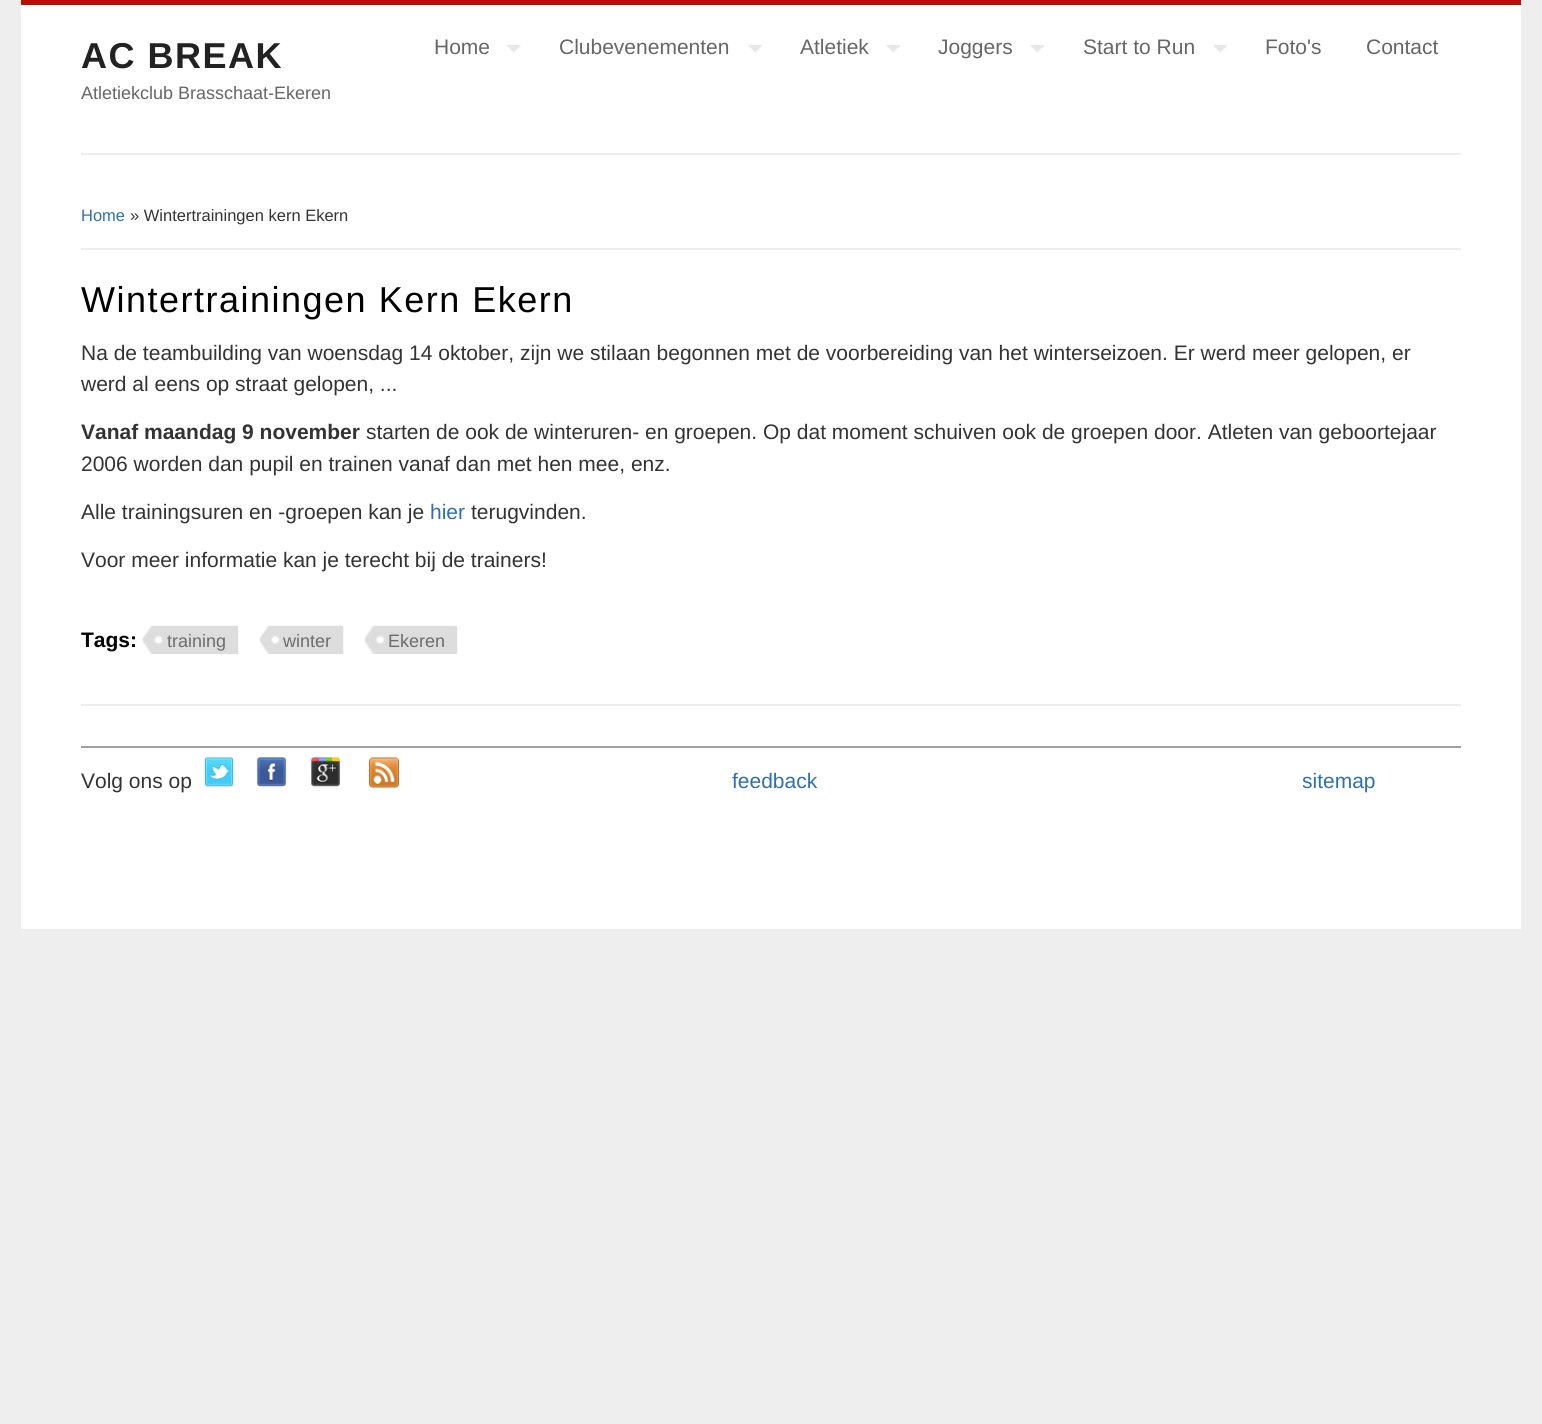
import math
import cairo


def write_spaced(ctx, x, y, s, letter, word):
	ctx.move_to(x, y)
	for ch in s:
		ctx.show_text(ch)
		ctx.rel_move_to(letter + word * (ch == ' '), 0)

def paste(ctx, path, x, y, w, h):
	ctx.save()
	ctx.set_source_surface(cairo.ImageSurface.create_from_png(path), x, y)
	ctx.rectangle(x, y, w, h)
	ctx.fill()
	ctx.restore()

def draw(ctx):
	ctx.set_source_rgb(0.933, 0.933, 0.933)
	ctx.paint()
	ctx.set_source_rgb(1, 1, 1)
	ctx.rectangle(21, 5, 1500, 924)
	ctx.fill()
	ctx.set_source_rgb(0.722, 0.063, 0.027)
	ctx.rectangle(21, 0, 1500, 5)
	ctx.fill()
	ctx.set_source_rgb(0.933, 0.933, 0.933)
	ctx.rectangle(81, 153, 1380, 2)
	ctx.fill()
	ctx.select_font_face('Liberation Sans', cairo.FONT_SLANT_NORMAL, cairo.FONT_WEIGHT_BOLD)
	ctx.set_font_size(36)
	ctx.set_source_rgb(0.133, 0.133, 0.133)
	write_spaced(ctx, 81, 68, 'AC BREAK', 1.5, 0)
	ctx.select_font_face('Liberation Sans')
	ctx.set_font_size(18)
	ctx.set_source_rgb(0.4, 0.4, 0.4)
	ctx.move_to(81, 99)
	ctx.show_text('Atletiekclub Brasschaat-Ekeren')
	ctx.set_font_size(21)
	ctx.move_to(434, 54)
	ctx.show_text('Home')
	paste(ctx, 'media/1.png', 507, 45, 14, 8)
	ctx.move_to(559, 54)
	ctx.show_text('Clubevenementen')
	paste(ctx, 'media/2.png', 748, 45, 14, 8)
	ctx.move_to(800, 54)
	ctx.show_text('Atletiek')
	paste(ctx, 'media/3.png', 886, 45, 14, 8)
	ctx.move_to(938, 54)
	ctx.show_text('Joggers')
	paste(ctx, 'media/3.png', 1030, 45, 14, 8)
	ctx.move_to(1083, 54)
	ctx.show_text('Start to Run')
	paste(ctx, 'media/3.png', 1213, 45, 14, 8)
	ctx.move_to(1265, 54)
	ctx.show_text('Foto\'s')
	ctx.move_to(1366, 54)
	ctx.show_text('Contact')
	ctx.set_source_rgb(0.933, 0.933, 0.933)
	ctx.rectangle(81, 248, 1380, 2)
	ctx.fill()
	ctx.set_font_size(16.5)
	ctx.set_source_rgb(0.18, 0.439, 0.694)
	ctx.move_to(81, 221)
	ctx.show_text('Home')
	ctx.set_source_rgb(0.2, 0.2, 0.2)
	ctx.move_to(130, 221)
	ctx.show_text('» Wintertrainingen kern Ekern')
	ctx.set_font_size(36)
	ctx.set_source_rgb(0, 0, 0)
	write_spaced(ctx, 81, 312, 'Wintertrainingen Kern Ekern', 1.5, 0)
	ctx.set_source_rgb(0.933, 0.933, 0.933)
	ctx.rectangle(81, 704, 1380, 2)
	ctx.fill()
	ctx.set_font_size(21)
	ctx.set_source_rgb(0.2, 0.2, 0.2)
	ctx.move_to(81, 360)
	ctx.show_text('Na de teambuilding van woensdag 14 oktober, zijn we stilaan begonnen met de voorbereiding van het winterseizoen. Er werd meer gelopen, er')
	ctx.move_to(81, 391)
	ctx.show_text('werd al eens op straat gelopen, ...')
	ctx.select_font_face('Liberation Sans', cairo.FONT_SLANT_NORMAL, cairo.FONT_WEIGHT_BOLD)
	ctx.move_to(81, 439)
	ctx.show_text('Vanaf maandag 9 november')
	ctx.select_font_face('Liberation Sans')
	for x, y, s in [
		(366, 439, 'starten de ook de winteruren- en groepen. Op dat moment schuiven ook de groepen door. Atleten van geboortejaar'),
		(81, 471, '2006 worden dan pupil en trainen vanaf dan met hen mee, enz.'),
		(81, 519, 'Alle trainingsuren en -groepen kan je'),
	]:
		ctx.move_to(x, y)
		ctx.show_text(s)
	ctx.set_source_rgb(0.18, 0.439, 0.694)
	ctx.move_to(430, 519)
	ctx.show_text('hier')
	ctx.set_source_rgb(0.2, 0.2, 0.2)
	ctx.move_to(471, 519)
	ctx.show_text('terugvinden.')
	ctx.move_to(81, 567)
	ctx.show_text('Voor meer informatie kan je terecht bij de trainers!')
	ctx.select_font_face('Liberation Sans', cairo.FONT_SLANT_NORMAL, cairo.FONT_WEIGHT_BOLD)
	ctx.set_source_rgb(0, 0, 0)
	ctx.move_to(81, 647)
	ctx.show_text('Tags:')
	paste(ctx, 'media/4.png', 142, 625, 97, 29)
	ctx.select_font_face('Liberation Sans')
	ctx.set_font_size(18)
	ctx.set_source_rgb(0.424, 0.424, 0.424)
	ctx.move_to(167, 647)
	ctx.show_text('training')
	paste(ctx, 'media/5.png', 259, 625, 85, 29)
	ctx.move_to(283, 647)
	ctx.show_text('winter')
	paste(ctx, 'media/6.png', 364, 625, 94, 29)
	ctx.move_to(388, 647)
	ctx.show_text('Ekeren')
	ctx.set_source_rgb(0.624, 0.624, 0.624)
	ctx.rectangle(81, 746, 1380, 2)
	ctx.fill()
	ctx.set_font_size(21)
	ctx.set_source_rgb(0.2, 0.2, 0.2)
	ctx.move_to(81, 788)
	ctx.show_text('Volg ons op')
	paste(ctx, 'media/7.png', 204, 757, 30, 31)
	paste(ctx, 'media/8.png', 256, 757, 31, 31)
	paste(ctx, 'media/9.png', 310, 757, 31, 31)
	paste(ctx, 'media/10.png', 369, 757, 30, 31)
	ctx.set_source_rgb(0.18, 0.439, 0.694)
	ctx.move_to(732, 788)
	ctx.show_text('feedback')
	ctx.move_to(1302, 788)
	ctx.show_text('sitemap')


surface = cairo.ImageSurface(cairo.FORMAT_RGB24, 1542, 1424)
ctx = cairo.Context(surface)
options = cairo.FontOptions()
options.set_hint_metrics(cairo.HINT_METRICS_OFF)
options.set_hint_style(cairo.HINT_STYLE_NONE)
ctx.set_font_options(options)
ctx.set_miter_limit(4)
draw(ctx)
surface.write_to_png('image.png')
